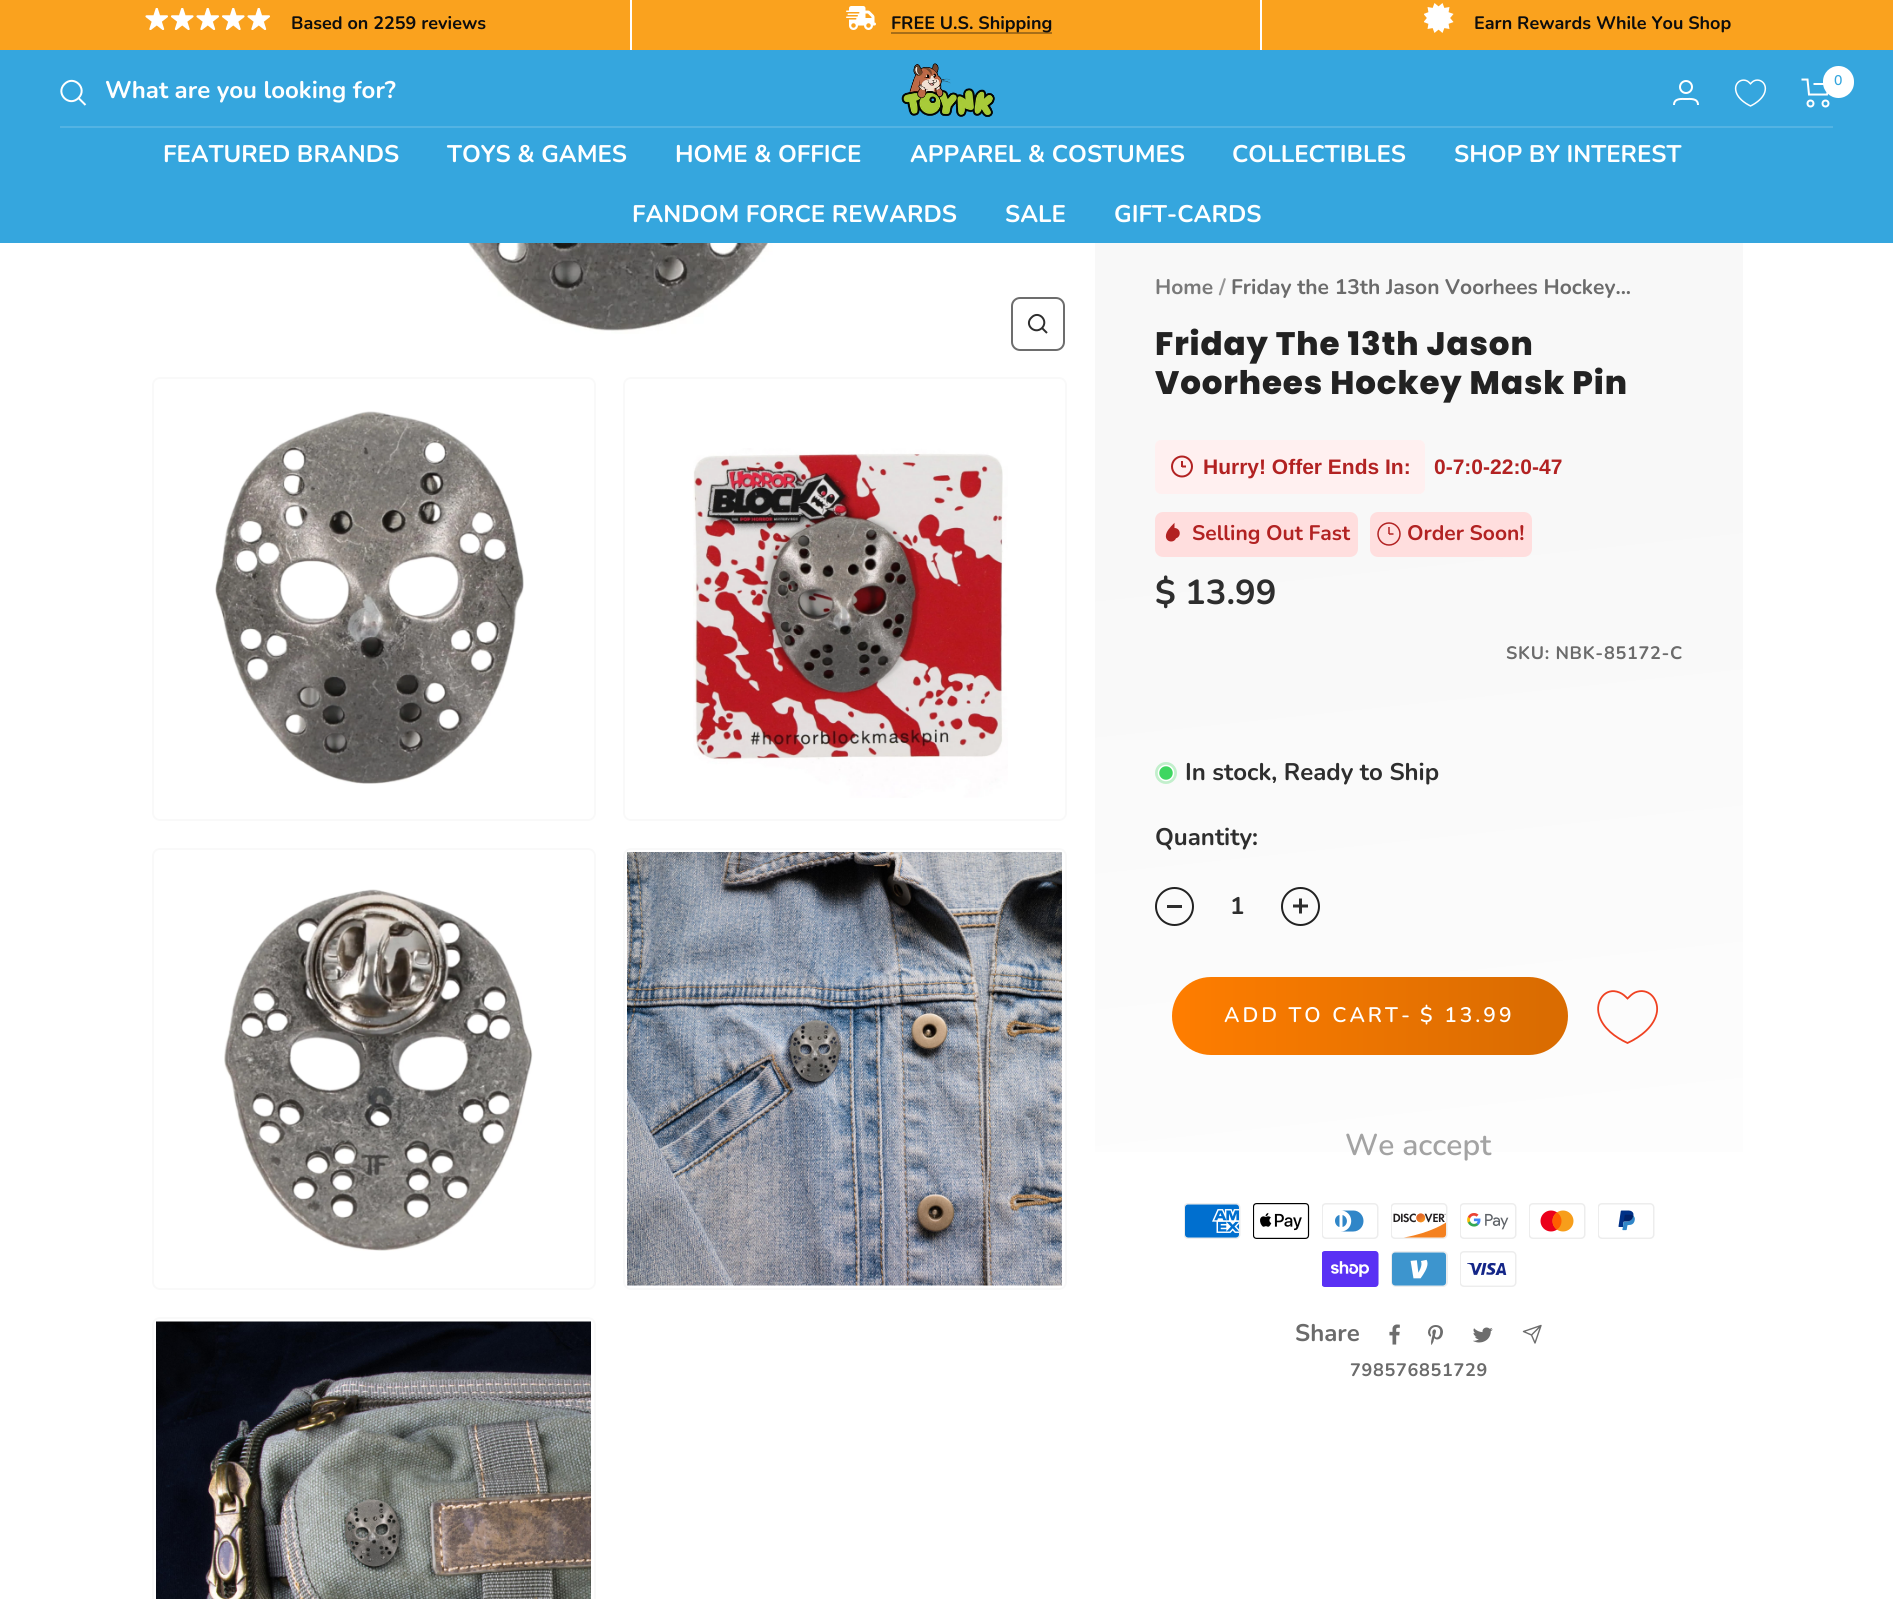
import math
import cairo


def write_spaced(ctx, x, y, s, letter, word):
	ctx.move_to(x, y)
	for ch in s:
		ctx.show_text(ch)
		ctx.rel_move_to(letter + word * (ch == ' '), 0)

def round_path(ctx, x, y, w, h, r):
	ctx.new_sub_path()
	for i, (u, v) in enumerate([(x + w - r, y + h - r), (x + r, y + h - r), (x + r, y + r), (x + w - r, y + r)]):
		ctx.arc(u, v, r, i * math.pi / 2, (i + 1) * math.pi / 2)
	ctx.close_path()

def paste(ctx, path, x, y, w, h):
	ctx.save()
	ctx.set_source_surface(cairo.ImageSurface.create_from_png(path), x, y)
	ctx.rectangle(x, y, w, h)
	ctx.fill()
	ctx.restore()

def draw(ctx):
	ctx.set_source_rgb(1, 1, 1)
	ctx.paint()
	ctx.set_source_rgb(0.98, 0.635, 0.118)
	ctx.rectangle(0, 0, 1893, 50)
	ctx.fill()
	ctx.set_source_rgb(1, 1, 1)
	ctx.rectangle(630, 0, 2, 50)
	ctx.fill()
	paste(ctx, 'media/1.png', 145, 8, 23, 22)
	paste(ctx, 'media/2.png', 171, 8, 23, 22)
	paste(ctx, 'media/1.png', 196, 8, 23, 22)
	paste(ctx, 'media/2.png', 222, 8, 23, 22)
	paste(ctx, 'media/1.png', 247, 8, 23, 22)
	ctx.select_font_face('Nunito', cairo.FONT_SLANT_NORMAL, cairo.FONT_WEIGHT_BOLD)
	ctx.set_font_size(18)
	ctx.set_source_rgb(0.051, 0.051, 0.051)
	ctx.move_to(291, 29)
	ctx.show_text('Based on 2259 reviews')
	ctx.set_source_rgb(1, 1, 1)
	ctx.rectangle(1260, 0, 2, 50)
	ctx.fill()
	paste(ctx, 'media/3.png', 846, 6, 30, 24)
	ctx.set_source_rgb(0.655, 0.431, 0.094)
	ctx.rectangle(891, 32, 161, 2)
	ctx.fill()
	ctx.set_source_rgb(0.051, 0.051, 0.051)
	ctx.move_to(891, 29)
	ctx.show_text('FREE U.S. Shipping')
	paste(ctx, 'media/4.png', 1424, 3, 30, 30)
	ctx.move_to(1474, 29)
	ctx.show_text('Earn Rewards While You Shop')
	ctx.set_source_rgb(0.208, 0.651, 0.871)
	ctx.rectangle(0, 50, 1893, 193)
	ctx.fill()
	ctx.new_path()
	ctx.move_to(78.5, 98)
	ctx.curve_to(88, 88.5, 74, 74.5, 64.5, 84)
	ctx.curve_to(55, 93.5, 69, 107.5, 78.5, 98)
	ctx.close_path()
	ctx.move_to(78.5, 98)
	ctx.line_to(85.5, 105)
	ctx.set_source_rgb(1, 1, 1)
	ctx.stroke()
	ctx.set_font_size(24)
	ctx.move_to(105, 98)
	ctx.show_text('What are you looking for?')
	paste(ctx, 'media/5.png', 901, 63, 94, 54)
	ctx.arc(1686, 87, 6, 0, 2 * math.pi)
	ctx.stroke()
	ctx.new_path()
	ctx.move_to(1674, 105)
	ctx.curve_to(1674, 98, 1681.5, 99, 1686, 99)
	ctx.curve_to(1690.5, 99, 1698, 98, 1698, 105)
	ctx.stroke()
	paste(ctx, 'media/6.png', 1734, 79, 33, 28)
	ctx.new_path()
	ctx.move_to(1801.5, 79.5)
	ctx.line_to(1807.5, 79.5)
	ctx.line_to(1809, 94.5)
	ctx.line_to(1827, 94.5)
	ctx.line_to(1830, 84)
	ctx.line_to(1813.5, 84)
	ctx.stroke()
	ctx.arc(1810.5, 103.5, 3, 0, 2 * math.pi)
	ctx.stroke()
	ctx.arc(1825.5, 103.5, 3, 0, 2 * math.pi)
	ctx.stroke()
	round_path(ctx, 1823, 66, 31, 32, 15.5)
	ctx.fill()
	ctx.select_font_face('Nunito SemiBold')
	ctx.set_font_size(14)
	ctx.set_source_rgb(0.208, 0.651, 0.871)
	ctx.move_to(1834, 85)
	ctx.show_text('0')
	ctx.set_source_rgb(0.325, 0.702, 0.89)
	ctx.rectangle(60, 126, 1773, 2)
	ctx.fill()
	ctx.select_font_face('Nunito', cairo.FONT_SLANT_NORMAL, cairo.FONT_WEIGHT_BOLD)
	ctx.set_font_size(24)
	ctx.set_source_rgb(1, 1, 1)
	for x, y, s in [
		(163, 162, 'FEATURED BRANDS'),
		(447, 162, 'TOYS & GAMES'),
		(675, 162, 'HOME & OFFICE'),
		(910, 162, 'APPAREL & COSTUMES'),
		(1232, 162, 'COLLECTIBLES'),
		(1454, 162, 'SHOP BY INTEREST'),
		(632, 222, 'FANDOM FORCE REWARDS'),
		(1005, 222, 'SALE'),
		(1114, 222, 'GIFT-CARDS'),
	]:
		ctx.move_to(x, y)
		ctx.show_text(s)
	paste(ctx, 'media/7.png', 399, 243, 428, 91)
	round_path(ctx, 1012, 298, 52, 52, 8)
	ctx.set_source_rgb(0.427, 0.427, 0.427)
	ctx.stroke()
	ctx.new_path()
	ctx.move_to(1042, 328)
	ctx.curve_to(1049, 320.5, 1038.5, 310, 1031.5, 317.5)
	ctx.curve_to(1024, 324.5, 1034.5, 335, 1042, 328)
	ctx.close_path()
	ctx.move_to(1042, 328)
	ctx.line_to(1047, 333)
	ctx.set_source_rgb(0.18, 0.18, 0.18)
	ctx.stroke()
	paste(ctx, 'media/8.png', 215, 411, 309, 373)
	round_path(ctx, 153, 378, 442, 442, 7)
	ctx.set_source_rgb(0.973, 0.973, 0.973)
	ctx.stroke()
	paste(ctx, 'media/9.png', 693, 448, 315, 350)
	round_path(ctx, 624, 378, 442, 442, 7)
	ctx.stroke()
	paste(ctx, 'media/10.png', 224, 889, 309, 362)
	round_path(ctx, 153, 849, 442, 440, 7)
	ctx.stroke()
	paste(ctx, 'media/11.png', 627, 852, 435, 434)
	round_path(ctx, 624, 849, 442, 440, 7)
	ctx.stroke()
	paste(ctx, 'media/12.png', 156, 1321, 435, 278)
	round_path(ctx, 153, 1318, 442, 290, 7)
	ctx.stroke()
	gradient = cairo.LinearGradient(1350, 153, 1488, 1458)
	gradient.add_color_stop_rgba(0.28, 0.973, 0.973, 0.973, 1)
	gradient.add_color_stop_rgba(0.99, 1, 1, 1, 1)
	ctx.set_source(gradient)
	ctx.rectangle(1095, 243, 648, 909)
	ctx.fill()
	ctx.set_font_size(21)
	ctx.set_source_rgb(0.475, 0.475, 0.475)
	ctx.move_to(1155, 294)
	ctx.show_text('Home')
	ctx.set_source_rgb(0.584, 0.584, 0.584)
	ctx.move_to(1219, 294)
	ctx.show_text('/')
	ctx.set_source_rgb(0.42, 0.42, 0.42)
	ctx.move_to(1231, 294)
	ctx.show_text('Friday the 13th Jason Voorhees Hockey...')
	ctx.select_font_face('Poppins ExtraBold')
	ctx.set_font_size(32.5)
	ctx.set_source_rgb(0.133, 0.133, 0.133)
	write_spaced(ctx, 1155, 355, 'Friday The 13th Jason', 0.9, 0)
	write_spaced(ctx, 1155, 394, 'Voorhees Hockey Mask Pin', 0.9, 0)
	ctx.set_source_rgb(1, 0.941, 0.941)
	round_path(ctx, 1155, 440, 270, 54, 6)
	ctx.fill()
	ctx.arc(1182, 466.5, 10, 0, 2 * math.pi)
	ctx.set_source_rgb(0.698, 0.133, 0.133)
	ctx.stroke()
	ctx.rectangle(1181, 461, 2, 6)
	ctx.fill()
	ctx.new_path()
	ctx.move_to(1182, 466.5)
	ctx.line_to(1186, 466.5)
	ctx.stroke()
	ctx.select_font_face('Liberation Sans', cairo.FONT_SLANT_NORMAL, cairo.FONT_WEIGHT_BOLD)
	ctx.set_font_size(21)
	ctx.move_to(1203, 474)
	ctx.show_text('Hurry! Offer Ends In:')
	ctx.move_to(1434, 474)
	ctx.show_text('0-7:0-22:0-47')
	ctx.set_source_rgb(1, 0.871, 0.871)
	round_path(ctx, 1155, 512, 203, 45, 8)
	ctx.fill()
	paste(ctx, 'media/13.png', 1165, 522, 15, 20)
	ctx.select_font_face('Nunito', cairo.FONT_SLANT_NORMAL, cairo.FONT_WEIGHT_BOLD)
	ctx.set_source_rgb(0.698, 0.133, 0.133)
	ctx.move_to(1192, 540)
	ctx.show_text('Selling Out Fast')
	ctx.set_source_rgb(1, 0.871, 0.871)
	round_path(ctx, 1370, 512, 162, 45, 8)
	ctx.fill()
	ctx.arc(1389, 534, 11, 0, 2 * math.pi)
	ctx.set_source_rgb(0.698, 0.133, 0.133)
	ctx.set_line_width(1.5)
	ctx.stroke()
	ctx.set_source_rgb(0.773, 0.318, 0.318)
	ctx.rectangle(1388, 527, 2, 7)
	ctx.fill()
	ctx.new_path()
	ctx.move_to(1389, 534)
	ctx.line_to(1393.5, 534)
	ctx.set_source_rgb(0.698, 0.133, 0.133)
	ctx.stroke()
	ctx.move_to(1407, 540)
	ctx.show_text('Order Soon!')
	ctx.set_font_size(34.5)
	ctx.set_source_rgb(0.18, 0.18, 0.18)
	ctx.move_to(1155, 604)
	ctx.show_text('$ 13.99')
	ctx.set_font_size(18)
	ctx.set_source_rgb(0.42, 0.42, 0.42)
	write_spaced(ctx, 1506, 659, 'SKU: NBK-85172-C', 0.7, 0)
	ctx.set_source_rgb(0.761, 0.937, 0.8)
	ctx.new_path()
	ctx.arc(1166, 773, 11, 0, 2 * math.pi)
	ctx.fill()
	ctx.set_source_rgb(0.243, 0.839, 0.376)
	ctx.arc(1166, 773, 7.5, 0, 2 * math.pi)
	ctx.fill_preserve()
	ctx.set_source_rgb(1, 1, 1)
	ctx.stroke()
	ctx.set_font_size(24)
	ctx.set_source_rgb(0.18, 0.18, 0.18)
	ctx.move_to(1185, 780)
	ctx.show_text('In stock, Ready to Ship')
	ctx.move_to(1155, 845)
	ctx.show_text('Quantity:')
	ctx.new_path()
	ctx.arc(1174.5, 906.5, 18.5, 0, 2 * math.pi)
	ctx.set_source_rgb(0.133, 0.133, 0.133)
	ctx.set_line_width(2)
	ctx.stroke()
	ctx.set_source_rgb(0.18, 0.18, 0.18)
	ctx.rectangle(1167, 905, 15, 3)
	ctx.fill()
	ctx.move_to(1230, 914)
	ctx.show_text('1')
	ctx.new_path()
	ctx.arc(1300.5, 906.5, 18.5, 0, 2 * math.pi)
	ctx.set_source_rgb(0.133, 0.133, 0.133)
	ctx.stroke()
	paste(ctx, 'media/14.png', 1293, 898, 15, 16)
	gradient = cairo.LinearGradient(1568, 1016, 1172, 1016)
	gradient.add_color_stop_rgba(0.06, 0.855, 0.424, 0.004, 1)
	gradient.add_color_stop_rgba(0.98, 0.996, 0.49, 0, 1)
	ctx.set_source(gradient)
	round_path(ctx, 1172, 977, 396, 78, 39)
	ctx.fill()
	ctx.select_font_face('Nunito SemiBold')
	ctx.set_font_size(21)
	ctx.set_source_rgb(1, 1, 1)
	write_spaced(ctx, 1224, 1022, 'ADD TO CART-', 3, 0)
	write_spaced(ctx, 1420, 1022, '$ 13.99', 3, 0)
	ctx.new_path()
	ctx.move_to(1627.5, 1043)
	ctx.curve_to(1615.5, 1037.5, 1602.5, 1028, 1599, 1015)
	ctx.curve_to(1595, 1001.5, 1605, 986.5, 1619.5, 992.5)
	ctx.curve_to(1623, 994, 1625, 996, 1627.5, 998.5)
	ctx.curve_to(1630, 996, 1632, 994, 1635, 992.5)
	ctx.curve_to(1648, 987, 1658.5, 998.5, 1657, 1011.5)
	ctx.curve_to(1655, 1026, 1640.5, 1037, 1627.5, 1043)
	ctx.close_path()
	ctx.set_source_rgb(0.937, 0.255, 0.129)
	ctx.set_line_width(1.8)
	ctx.stroke()
	ctx.set_font_size(30)
	ctx.set_source_rgb(0.639, 0.639, 0.639)
	ctx.move_to(1345, 1155)
	ctx.show_text('We accept')
	paste(ctx, 'media/15.png', 1184, 1203, 57, 36)
	paste(ctx, 'media/16.png', 1253, 1203, 57, 36)
	paste(ctx, 'media/17.png', 1322, 1203, 57, 36)
	paste(ctx, 'media/18.png', 1391, 1203, 57, 36)
	paste(ctx, 'media/19.png', 1460, 1203, 57, 36)
	paste(ctx, 'media/20.png', 1529, 1203, 57, 36)
	paste(ctx, 'media/21.png', 1598, 1203, 57, 36)
	paste(ctx, 'media/22.png', 1322, 1251, 57, 36)
	paste(ctx, 'media/23.png', 1391, 1251, 57, 36)
	paste(ctx, 'media/24.png', 1460, 1251, 57, 36)
	ctx.select_font_face('Nunito', cairo.FONT_SLANT_NORMAL, cairo.FONT_WEIGHT_BOLD)
	ctx.set_font_size(24)
	ctx.set_source_rgb(0.42, 0.42, 0.42)
	ctx.move_to(1295, 1341)
	ctx.show_text('Share')
	paste(ctx, 'media/25.png', 1389, 1324, 11, 21)
	paste(ctx, 'media/26.png', 1428, 1325, 15, 20)
	paste(ctx, 'media/27.png', 1473, 1327, 20, 16)
	ctx.new_path()
	ctx.move_to(1541, 1325.5)
	ctx.line_to(1535, 1343)
	ctx.line_to(1531.5, 1335)
	ctx.move_to(1541, 1325.5)
	ctx.line_to(1523.5, 1331.5)
	ctx.line_to(1531.5, 1335)
	ctx.move_to(1541, 1325.5)
	ctx.line_to(1531.5, 1335)
	ctx.set_source_rgb(0.424, 0.424, 0.424)
	ctx.set_line_width(1.4)
	ctx.set_line_cap(cairo.LINE_CAP_ROUND)
	ctx.set_line_join(cairo.LINE_JOIN_ROUND)
	ctx.stroke()
	ctx.set_font_size(18)
	ctx.set_source_rgb(0.42, 0.42, 0.42)
	write_spaced(ctx, 1350, 1376, '798576851729', 0.7, 0)


surface = cairo.ImageSurface(cairo.FORMAT_RGB24, 1893, 1599)
ctx = cairo.Context(surface)
options = cairo.FontOptions()
options.set_hint_metrics(cairo.HINT_METRICS_OFF)
options.set_hint_style(cairo.HINT_STYLE_NONE)
ctx.set_font_options(options)
ctx.set_miter_limit(4)
draw(ctx)
surface.write_to_png('image.png')
